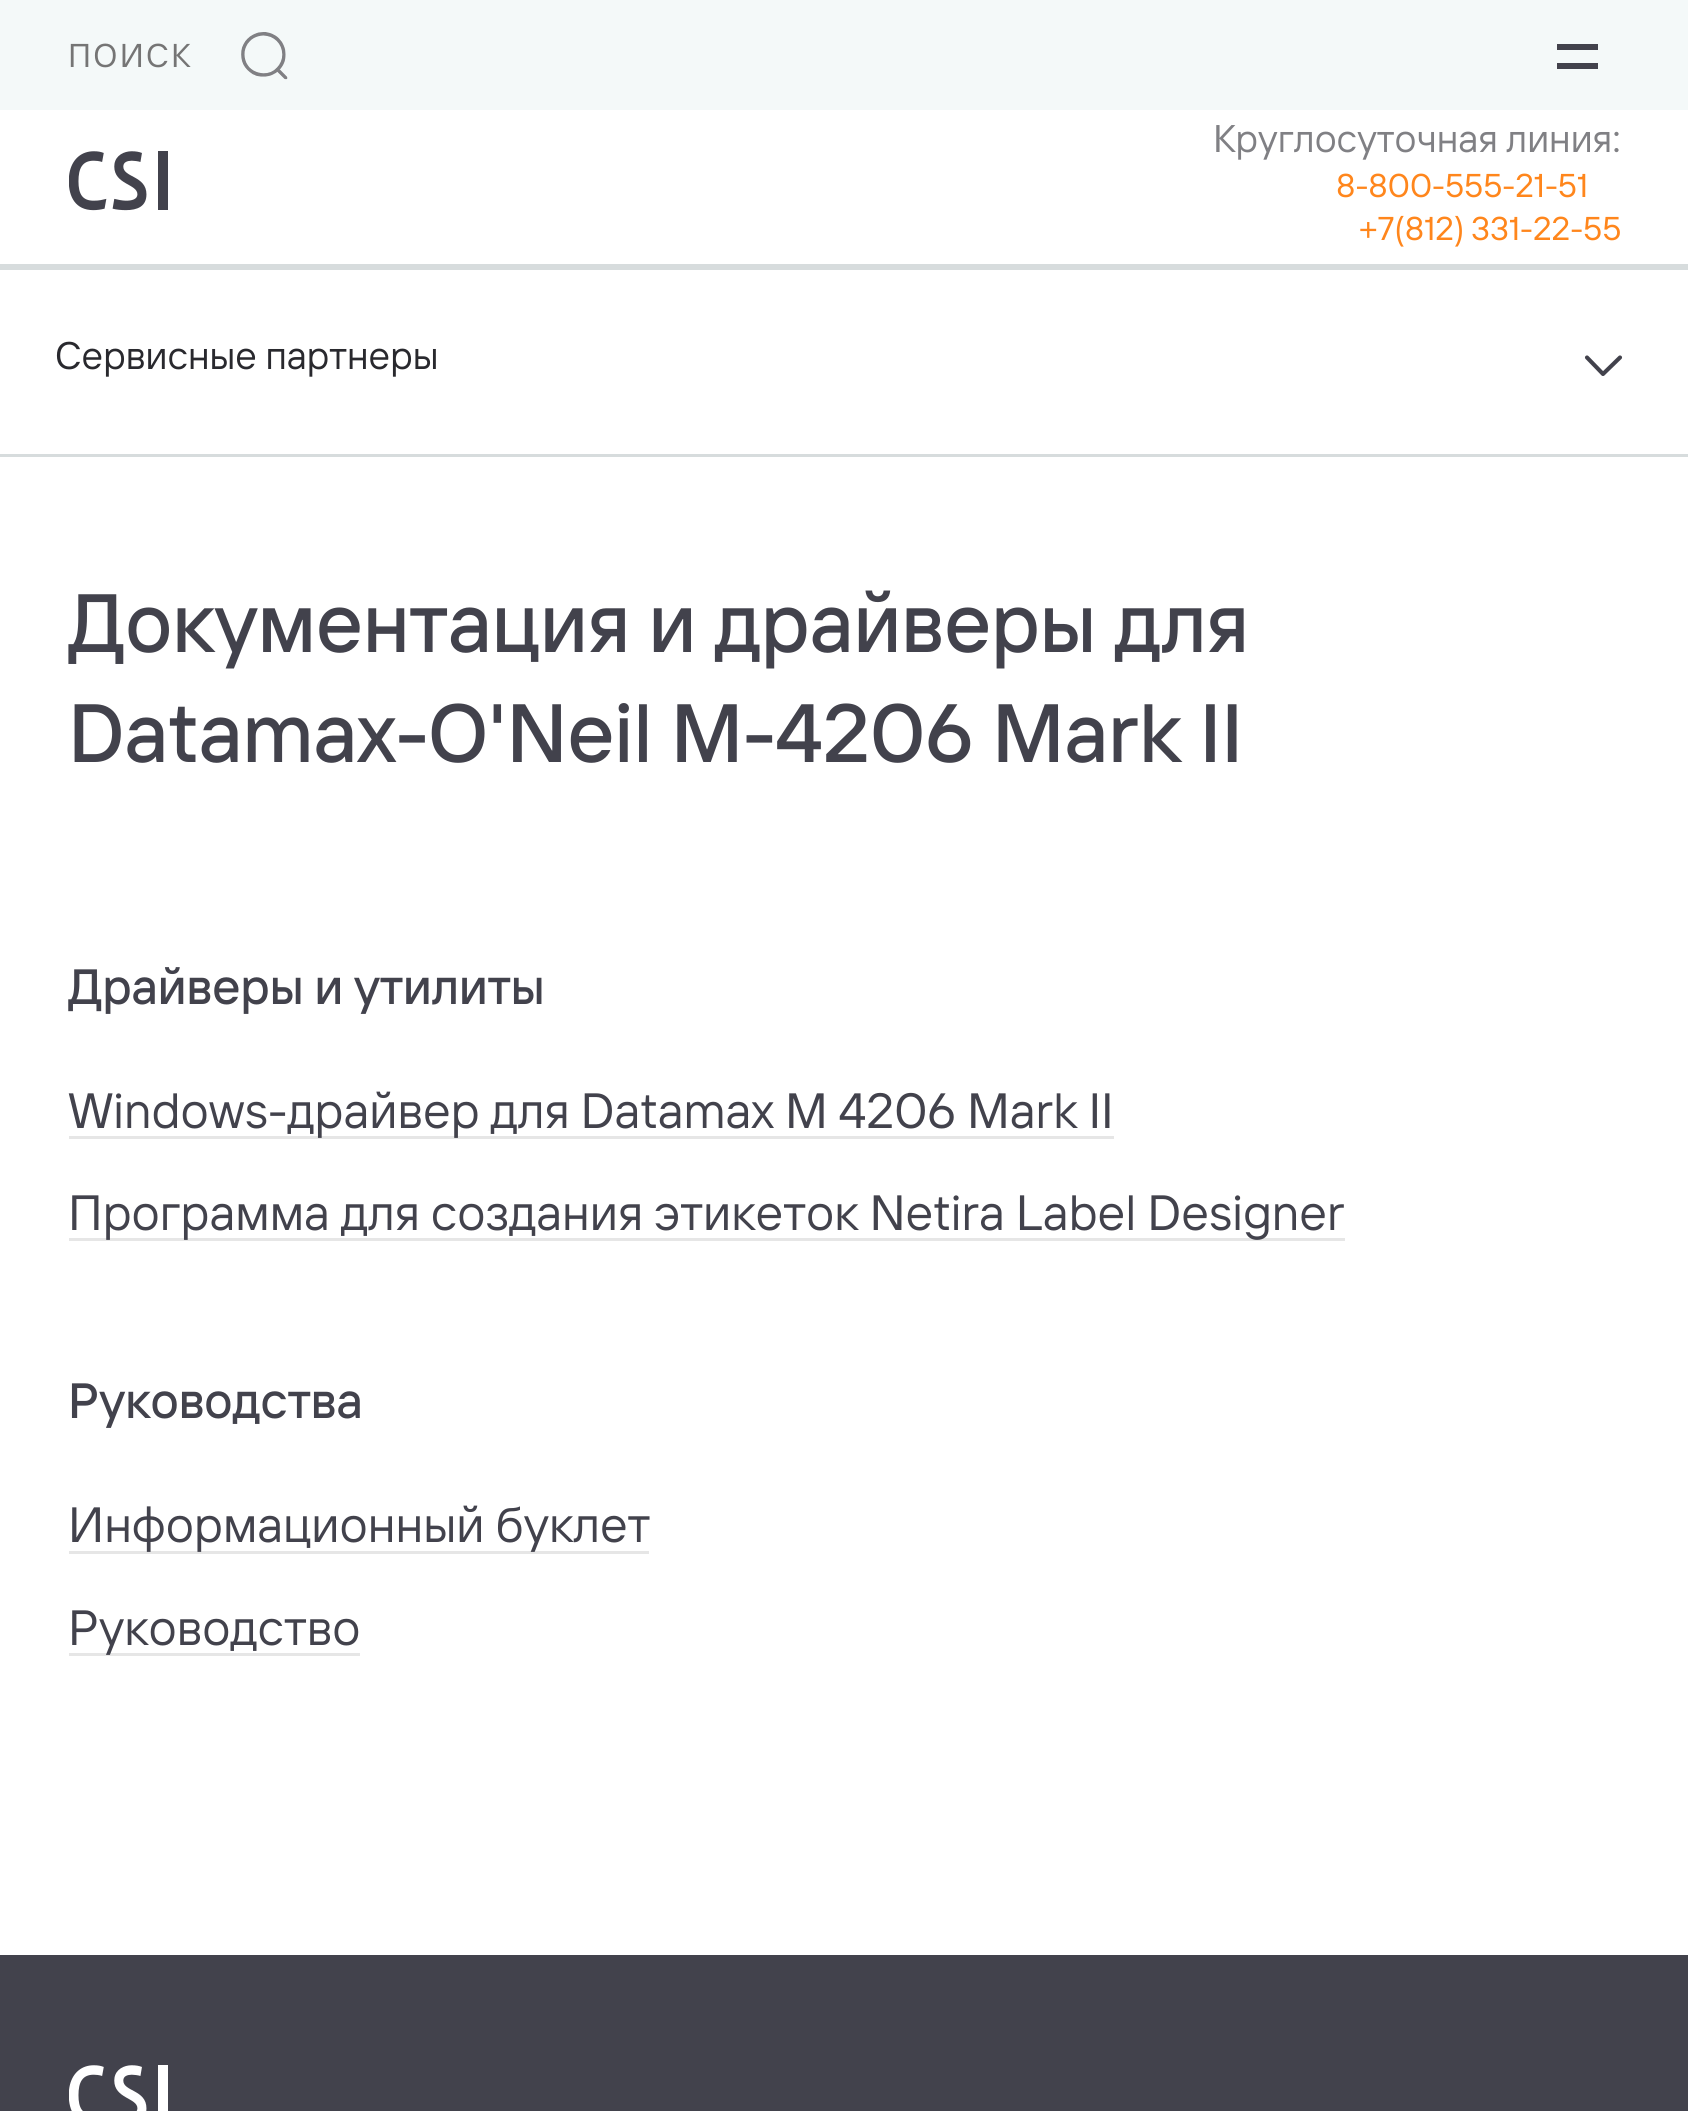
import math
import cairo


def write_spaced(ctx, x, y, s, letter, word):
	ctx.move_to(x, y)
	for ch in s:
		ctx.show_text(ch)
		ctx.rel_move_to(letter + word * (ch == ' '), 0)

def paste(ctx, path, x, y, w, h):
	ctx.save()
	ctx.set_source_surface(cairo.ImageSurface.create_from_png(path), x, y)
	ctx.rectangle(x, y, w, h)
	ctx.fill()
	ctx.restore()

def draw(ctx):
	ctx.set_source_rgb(1, 1, 1)
	ctx.paint()
	ctx.set_source_rgb(0.957, 0.973, 0.976)
	ctx.rectangle(0, 0, 1688, 110)
	ctx.fill()
	paste(ctx, 'media/1.png', 241, 32, 47, 48)
	ctx.select_font_face('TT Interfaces')
	ctx.set_font_size(33)
	ctx.set_source_rgb(0.459, 0.459, 0.459)
	write_spaced(ctx, 68, 67, 'ПОИСК', 2.25, 0)
	ctx.set_source_rgb(0.259, 0.259, 0.298)
	ctx.rectangle(1557, 44, 41, 6)
	ctx.fill()
	ctx.rectangle(1557, 63, 41, 6)
	ctx.fill()
	paste(ctx, 'media/2.png', 69, 151, 99, 60)
	ctx.set_font_size(38.5)
	ctx.set_source_rgb(0.502, 0.502, 0.518)
	ctx.move_to(1213, 152)
	ctx.show_text('Круглосуточная линия:')
	ctx.set_font_size(33)
	ctx.set_source_rgb(1, 0.525, 0.11)
	ctx.move_to(1336, 197)
	ctx.show_text('8-800-555-21-51')
	ctx.move_to(1359, 240)
	ctx.show_text('+7(812) 331-22-55')
	ctx.set_source_rgb(0.843, 0.863, 0.867)
	ctx.rectangle(0, 264, 1688, 6)
	ctx.fill()
	ctx.rectangle(0, 454, 1688, 3)
	ctx.fill()
	ctx.set_font_size(38.5)
	ctx.set_source_rgb(0.161, 0.161, 0.18)
	ctx.move_to(55, 369)
	ctx.show_text('Сервисные партнеры')
	ctx.new_path()
	ctx.move_to(1587, 357.5)
	ctx.line_to(1603, 374)
	ctx.line_to(1620, 357.5)
	ctx.set_source_rgb(0.259, 0.259, 0.298)
	ctx.set_line_width(4.1)
	ctx.set_line_cap(cairo.LINE_CAP_ROUND)
	ctx.set_line_join(cairo.LINE_JOIN_ROUND)
	ctx.stroke()
	ctx.select_font_face('TT Interfaces Medium')
	ctx.set_font_size(82.5)
	ctx.move_to(68, 652)
	ctx.show_text('Документация и драйверы для')
	ctx.move_to(68, 762)
	ctx.show_text('Datamax-O\'Neil M-4206 Mark II')
	ctx.set_font_size(49.5)
	ctx.move_to(68, 1004)
	ctx.show_text('Драйверы и утилиты')
	ctx.set_source_rgb(0.902, 0.902, 0.902)
	ctx.rectangle(69, 1136, 1045, 3)
	ctx.fill()
	ctx.select_font_face('TT Interfaces')
	ctx.set_source_rgb(0.259, 0.259, 0.298)
	ctx.move_to(68, 1128)
	ctx.show_text('Windows-драйвер для Datamax M 4206 Mark II')
	ctx.set_source_rgb(0.902, 0.902, 0.902)
	ctx.rectangle(69, 1238, 1276, 3)
	ctx.fill()
	ctx.set_source_rgb(0.259, 0.259, 0.298)
	ctx.move_to(68, 1230)
	ctx.show_text('Программа для создания этикеток Netira Label Designer')
	ctx.select_font_face('TT Interfaces Medium')
	ctx.move_to(68, 1418)
	ctx.show_text('Руководства')
	ctx.set_source_rgb(0.902, 0.902, 0.902)
	ctx.rectangle(69, 1551, 580, 3)
	ctx.fill()
	ctx.select_font_face('TT Interfaces')
	ctx.set_source_rgb(0.259, 0.259, 0.298)
	ctx.move_to(68, 1542)
	ctx.show_text('Информационный буклет')
	ctx.set_source_rgb(0.902, 0.902, 0.902)
	ctx.rectangle(69, 1653, 291, 3)
	ctx.fill()
	ctx.set_source_rgb(0.259, 0.259, 0.298)
	ctx.move_to(68, 1645)
	ctx.show_text('Руководство')
	ctx.rectangle(0, 1955, 1688, 156)
	ctx.fill()
	paste(ctx, 'media/3.png', 69, 2065, 99, 46)


surface = cairo.ImageSurface(cairo.FORMAT_RGB24, 1688, 2111)
ctx = cairo.Context(surface)
options = cairo.FontOptions()
options.set_hint_metrics(cairo.HINT_METRICS_OFF)
options.set_hint_style(cairo.HINT_STYLE_NONE)
ctx.set_font_options(options)
ctx.set_miter_limit(4)
draw(ctx)
surface.write_to_png('image.png')
